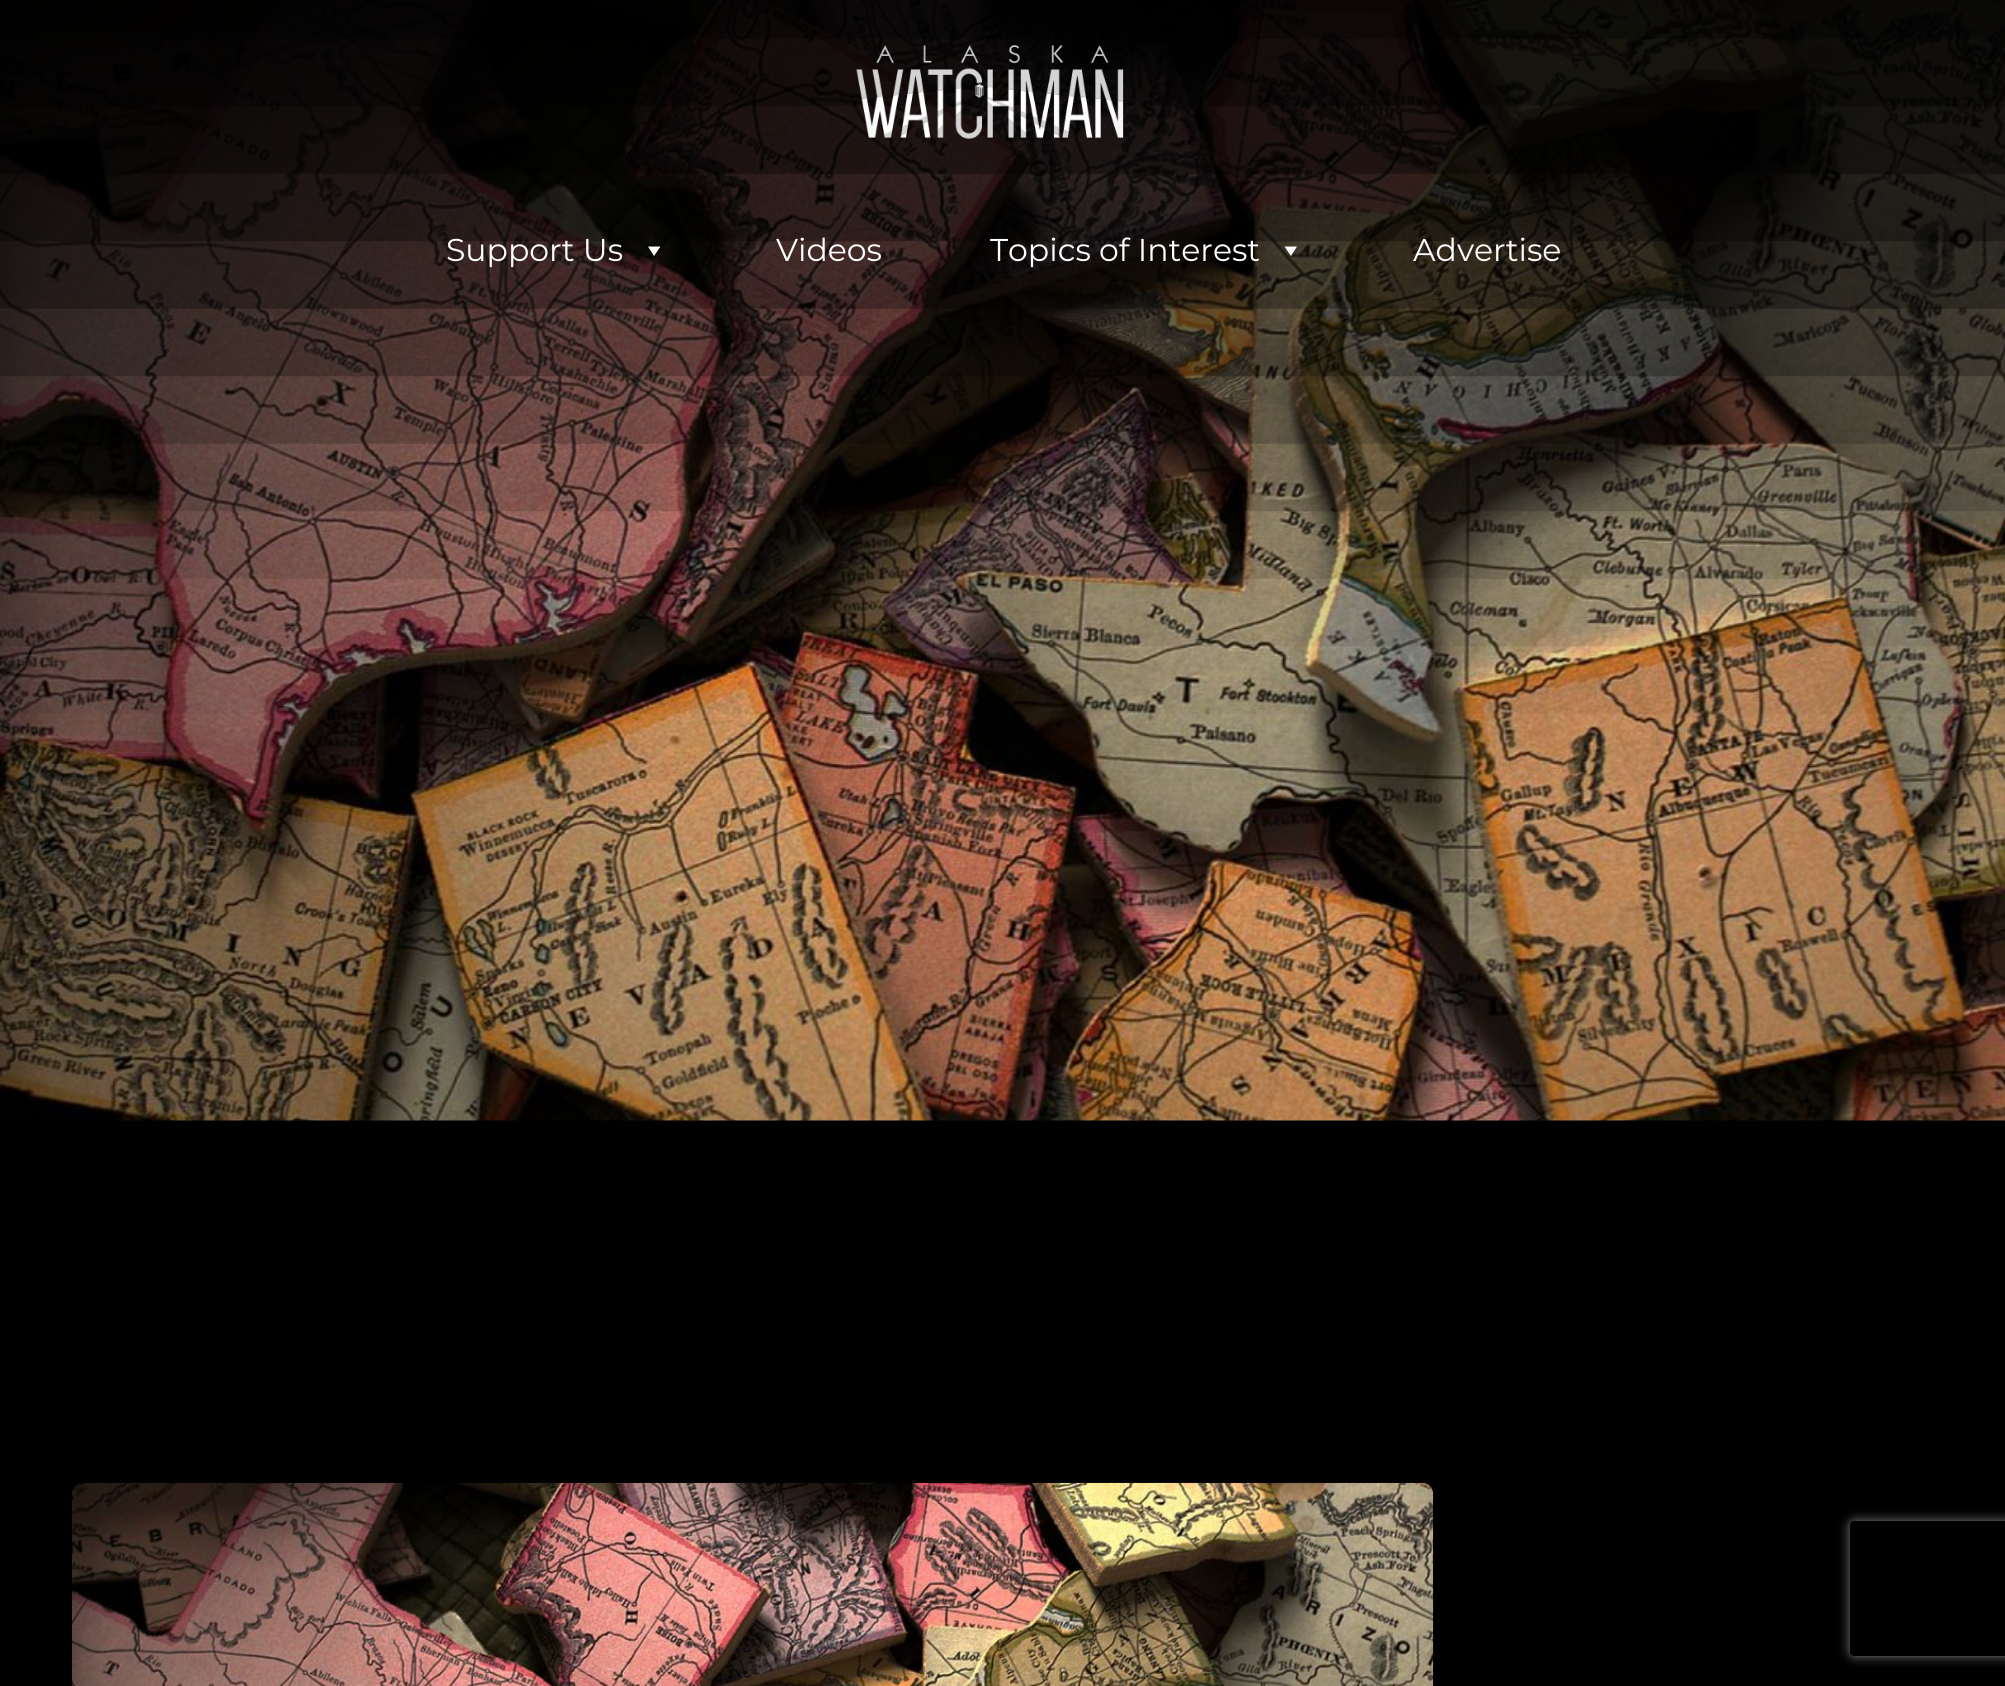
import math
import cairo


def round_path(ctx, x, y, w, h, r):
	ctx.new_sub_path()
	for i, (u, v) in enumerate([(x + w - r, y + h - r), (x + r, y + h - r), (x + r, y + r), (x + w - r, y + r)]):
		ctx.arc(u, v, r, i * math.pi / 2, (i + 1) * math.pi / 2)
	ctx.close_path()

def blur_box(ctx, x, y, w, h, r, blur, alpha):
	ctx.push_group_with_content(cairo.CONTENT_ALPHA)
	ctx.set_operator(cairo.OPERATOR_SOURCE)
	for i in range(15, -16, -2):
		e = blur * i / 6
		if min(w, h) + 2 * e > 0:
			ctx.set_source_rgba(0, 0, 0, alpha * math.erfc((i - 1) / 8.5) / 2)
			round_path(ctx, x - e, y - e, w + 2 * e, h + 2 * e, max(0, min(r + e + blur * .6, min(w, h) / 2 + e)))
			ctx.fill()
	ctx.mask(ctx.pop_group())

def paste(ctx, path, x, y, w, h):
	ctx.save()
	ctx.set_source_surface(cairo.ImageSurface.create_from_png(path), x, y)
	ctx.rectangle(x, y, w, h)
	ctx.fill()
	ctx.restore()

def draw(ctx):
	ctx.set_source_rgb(0, 0, 0)
	ctx.paint()
	paste(ctx, 'media/1.png', 0, 0, 2005, 1121)
	blur_box(ctx, -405, -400, 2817, 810, 0, 202.5, 0.96)
	paste(ctx, 'media/2.png', 856, 45, 268, 94)
	ctx.select_font_face('Montserrat')
	ctx.set_font_size(31.5)
	ctx.set_source_rgb(1, 1, 1)
	ctx.move_to(446, 261)
	ctx.show_text('Support Us')
	ctx.new_path()
	ctx.move_to(660.5, 246.5)
	ctx.line_to(654, 256)
	ctx.line_to(648, 246.5)
	ctx.close_path()
	ctx.fill()
	ctx.move_to(776, 261)
	ctx.show_text('Videos')
	ctx.move_to(990, 261)
	ctx.show_text('Topics of Interest')
	ctx.new_path()
	ctx.move_to(1297, 246.5)
	ctx.line_to(1291, 256)
	ctx.line_to(1284.5, 246.5)
	ctx.close_path()
	ctx.fill()
	ctx.move_to(1413, 261)
	ctx.show_text('Advertise')
	paste(ctx, 'media/3.png', 72, 1482, 1362, 204)
	ctx.save()
	ctx.set_fill_rule(cairo.FILL_RULE_EVEN_ODD)
	ctx.new_path()
	ctx.move_to(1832, 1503)
	ctx.line_to(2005, 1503)
	ctx.line_to(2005, 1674)
	ctx.line_to(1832, 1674)
	ctx.close_path()
	ctx.move_to(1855, 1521)
	ctx.line_to(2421, 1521)
	ctx.curve_to(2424, 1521, 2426, 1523, 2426, 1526)
	ctx.line_to(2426, 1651)
	ctx.curve_to(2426, 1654, 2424, 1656, 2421, 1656)
	ctx.line_to(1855, 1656)
	ctx.curve_to(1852, 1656, 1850, 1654, 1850, 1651)
	ctx.line_to(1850, 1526)
	ctx.curve_to(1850, 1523, 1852, 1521, 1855, 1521)
	ctx.close_path()
	ctx.clip()
	ctx.set_source_rgb(0.502, 0.502, 0.502)
	blur_box(ctx, 1850, 1521, 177, 135, 5, 5.5, 1)
	ctx.restore()


surface = cairo.ImageSurface(cairo.FORMAT_RGB24, 2005, 1686)
ctx = cairo.Context(surface)
options = cairo.FontOptions()
options.set_hint_metrics(cairo.HINT_METRICS_OFF)
options.set_hint_style(cairo.HINT_STYLE_NONE)
ctx.set_font_options(options)
ctx.set_miter_limit(4)
draw(ctx)
surface.write_to_png('image.png')
